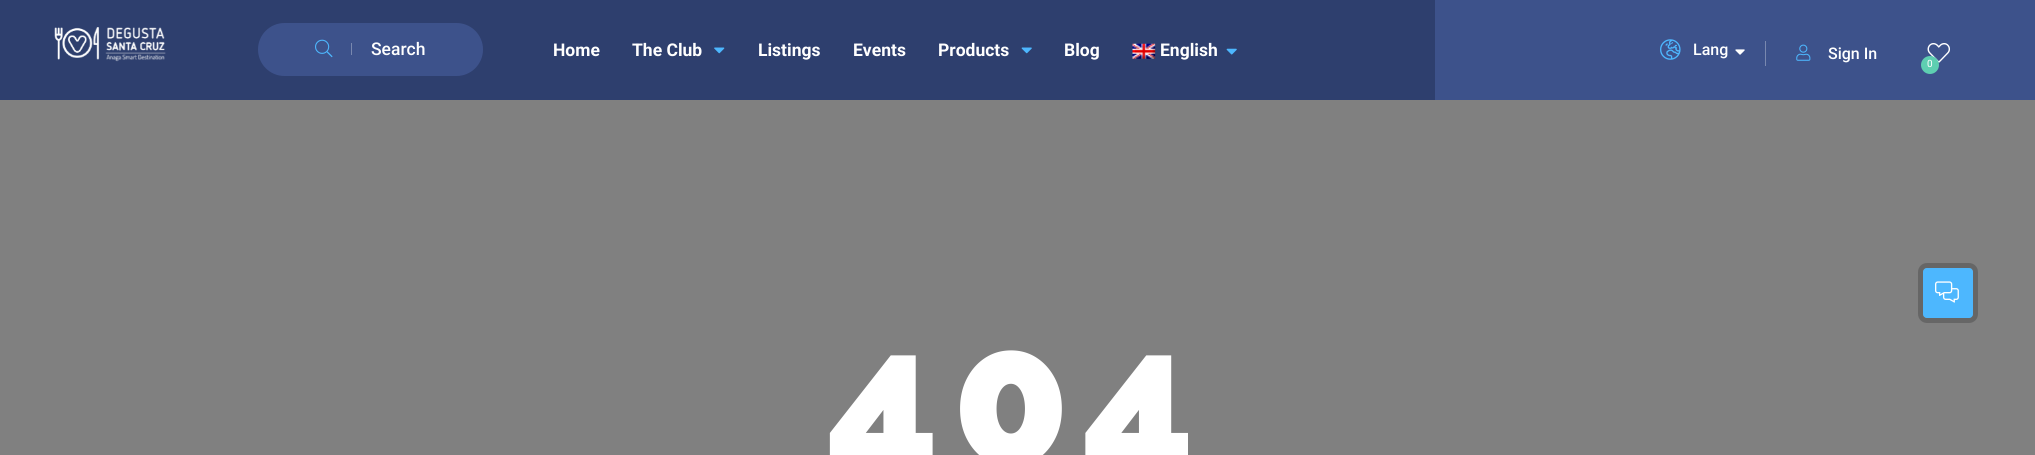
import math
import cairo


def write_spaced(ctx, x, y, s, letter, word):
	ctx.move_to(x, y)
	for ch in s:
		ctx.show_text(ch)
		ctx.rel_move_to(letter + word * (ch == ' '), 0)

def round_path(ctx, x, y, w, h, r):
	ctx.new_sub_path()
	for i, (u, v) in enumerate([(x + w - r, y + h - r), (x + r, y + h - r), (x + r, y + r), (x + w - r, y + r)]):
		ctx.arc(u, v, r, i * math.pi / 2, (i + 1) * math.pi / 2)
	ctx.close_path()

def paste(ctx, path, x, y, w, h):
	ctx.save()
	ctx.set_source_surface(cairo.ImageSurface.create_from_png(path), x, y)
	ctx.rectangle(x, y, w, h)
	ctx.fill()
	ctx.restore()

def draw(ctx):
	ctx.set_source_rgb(0.18, 0.247, 0.431)
	ctx.paint()
	paste(ctx, 'media/1.png', 54, 27, 112, 35)
	ctx.set_source_rgb(0.239, 0.322, 0.545)
	round_path(ctx, 258, 23, 225, 53, 26.5)
	ctx.fill()
	paste(ctx, 'media/2.png', 315, 39, 18, 19)
	ctx.set_source_rgb(0.475, 0.533, 0.686)
	ctx.rectangle(351, 43, 1, 12)
	ctx.fill()
	ctx.select_font_face('Roboto Medium')
	ctx.set_font_size(17.5)
	ctx.set_source_rgb(1, 1, 1)
	ctx.move_to(371, 55)
	ctx.show_text('Search')
	ctx.select_font_face('Roboto', cairo.FONT_SLANT_NORMAL, cairo.FONT_WEIGHT_BOLD)
	ctx.move_to(553, 56)
	ctx.show_text('Home')
	ctx.move_to(632, 56)
	ctx.show_text('The Club')
	paste(ctx, 'media/3.png', 714, 47, 11, 7)
	for x, y, s in [
		(758, 56, 'Listings'),
		(853, 56, 'Events'),
		(938, 56, 'Products'),
	]:
		ctx.move_to(x, y)
		ctx.show_text(s)
	paste(ctx, 'media/4.png', 1021, 47, 11, 7)
	ctx.move_to(1064, 56)
	ctx.show_text('Blog')
	paste(ctx, 'media/5.png', 1132, 43, 24, 16)
	ctx.move_to(1160, 56)
	ctx.show_text('English')
	paste(ctx, 'media/6.png', 1226, 48, 11, 7)
	ctx.set_source_rgb(0.239, 0.322, 0.545)
	ctx.rectangle(1435, 0, 600, 100)
	ctx.fill()
	paste(ctx, 'media/7.png', 1660, 39, 21, 21)
	ctx.select_font_face('Roboto Medium')
	ctx.set_font_size(16)
	ctx.set_source_rgb(1, 1, 1)
	ctx.move_to(1693, 55)
	ctx.show_text('Lang')
	paste(ctx, 'media/8.png', 1735, 49, 10, 6)
	ctx.set_source_rgb(0.475, 0.533, 0.686)
	ctx.rectangle(1765, 41, 1, 25)
	ctx.fill()
	paste(ctx, 'media/9.png', 1796, 44, 15, 17)
	ctx.set_source_rgb(1, 1, 1)
	ctx.move_to(1828, 59)
	ctx.show_text('Sign In')
	paste(ctx, 'media/10.png', 1927, 43, 23, 20)
	ctx.set_source_rgb(0.369, 0.812, 0.694)
	ctx.arc(1930, 65, 9, 0, 2 * math.pi)
	ctx.fill()
	ctx.select_font_face('Roboto')
	ctx.set_font_size(10)
	ctx.set_source_rgb(1, 1, 1)
	ctx.move_to(1927, 67)
	ctx.show_text('0')
	ctx.set_source_rgb(0.502, 0.502, 0.502)
	ctx.rectangle(0, 100, 2035, 355)
	ctx.fill()
	ctx.select_font_face('Raleway Black')
	ctx.set_font_size(192)
	ctx.set_source_rgb(1, 1, 1)
	write_spaced(ctx, 827, 465, '404', 12.5, 0)
	round_path(ctx, 1920.5, 265.5, 55, 55, 6.5)
	ctx.set_source_rgb(0.4, 0.4, 0.4)
	ctx.set_line_width(5)
	ctx.stroke()
	ctx.set_source_rgb(0.302, 0.718, 0.996)
	round_path(ctx, 1923, 268, 50, 50, 4)
	ctx.fill()
	paste(ctx, 'media/11.png', 1935, 281, 24, 22)


surface = cairo.ImageSurface(cairo.FORMAT_RGB24, 2035, 455)
ctx = cairo.Context(surface)
options = cairo.FontOptions()
options.set_hint_metrics(cairo.HINT_METRICS_OFF)
options.set_hint_style(cairo.HINT_STYLE_NONE)
ctx.set_font_options(options)
ctx.set_miter_limit(4)
draw(ctx)
surface.write_to_png('image.png')
